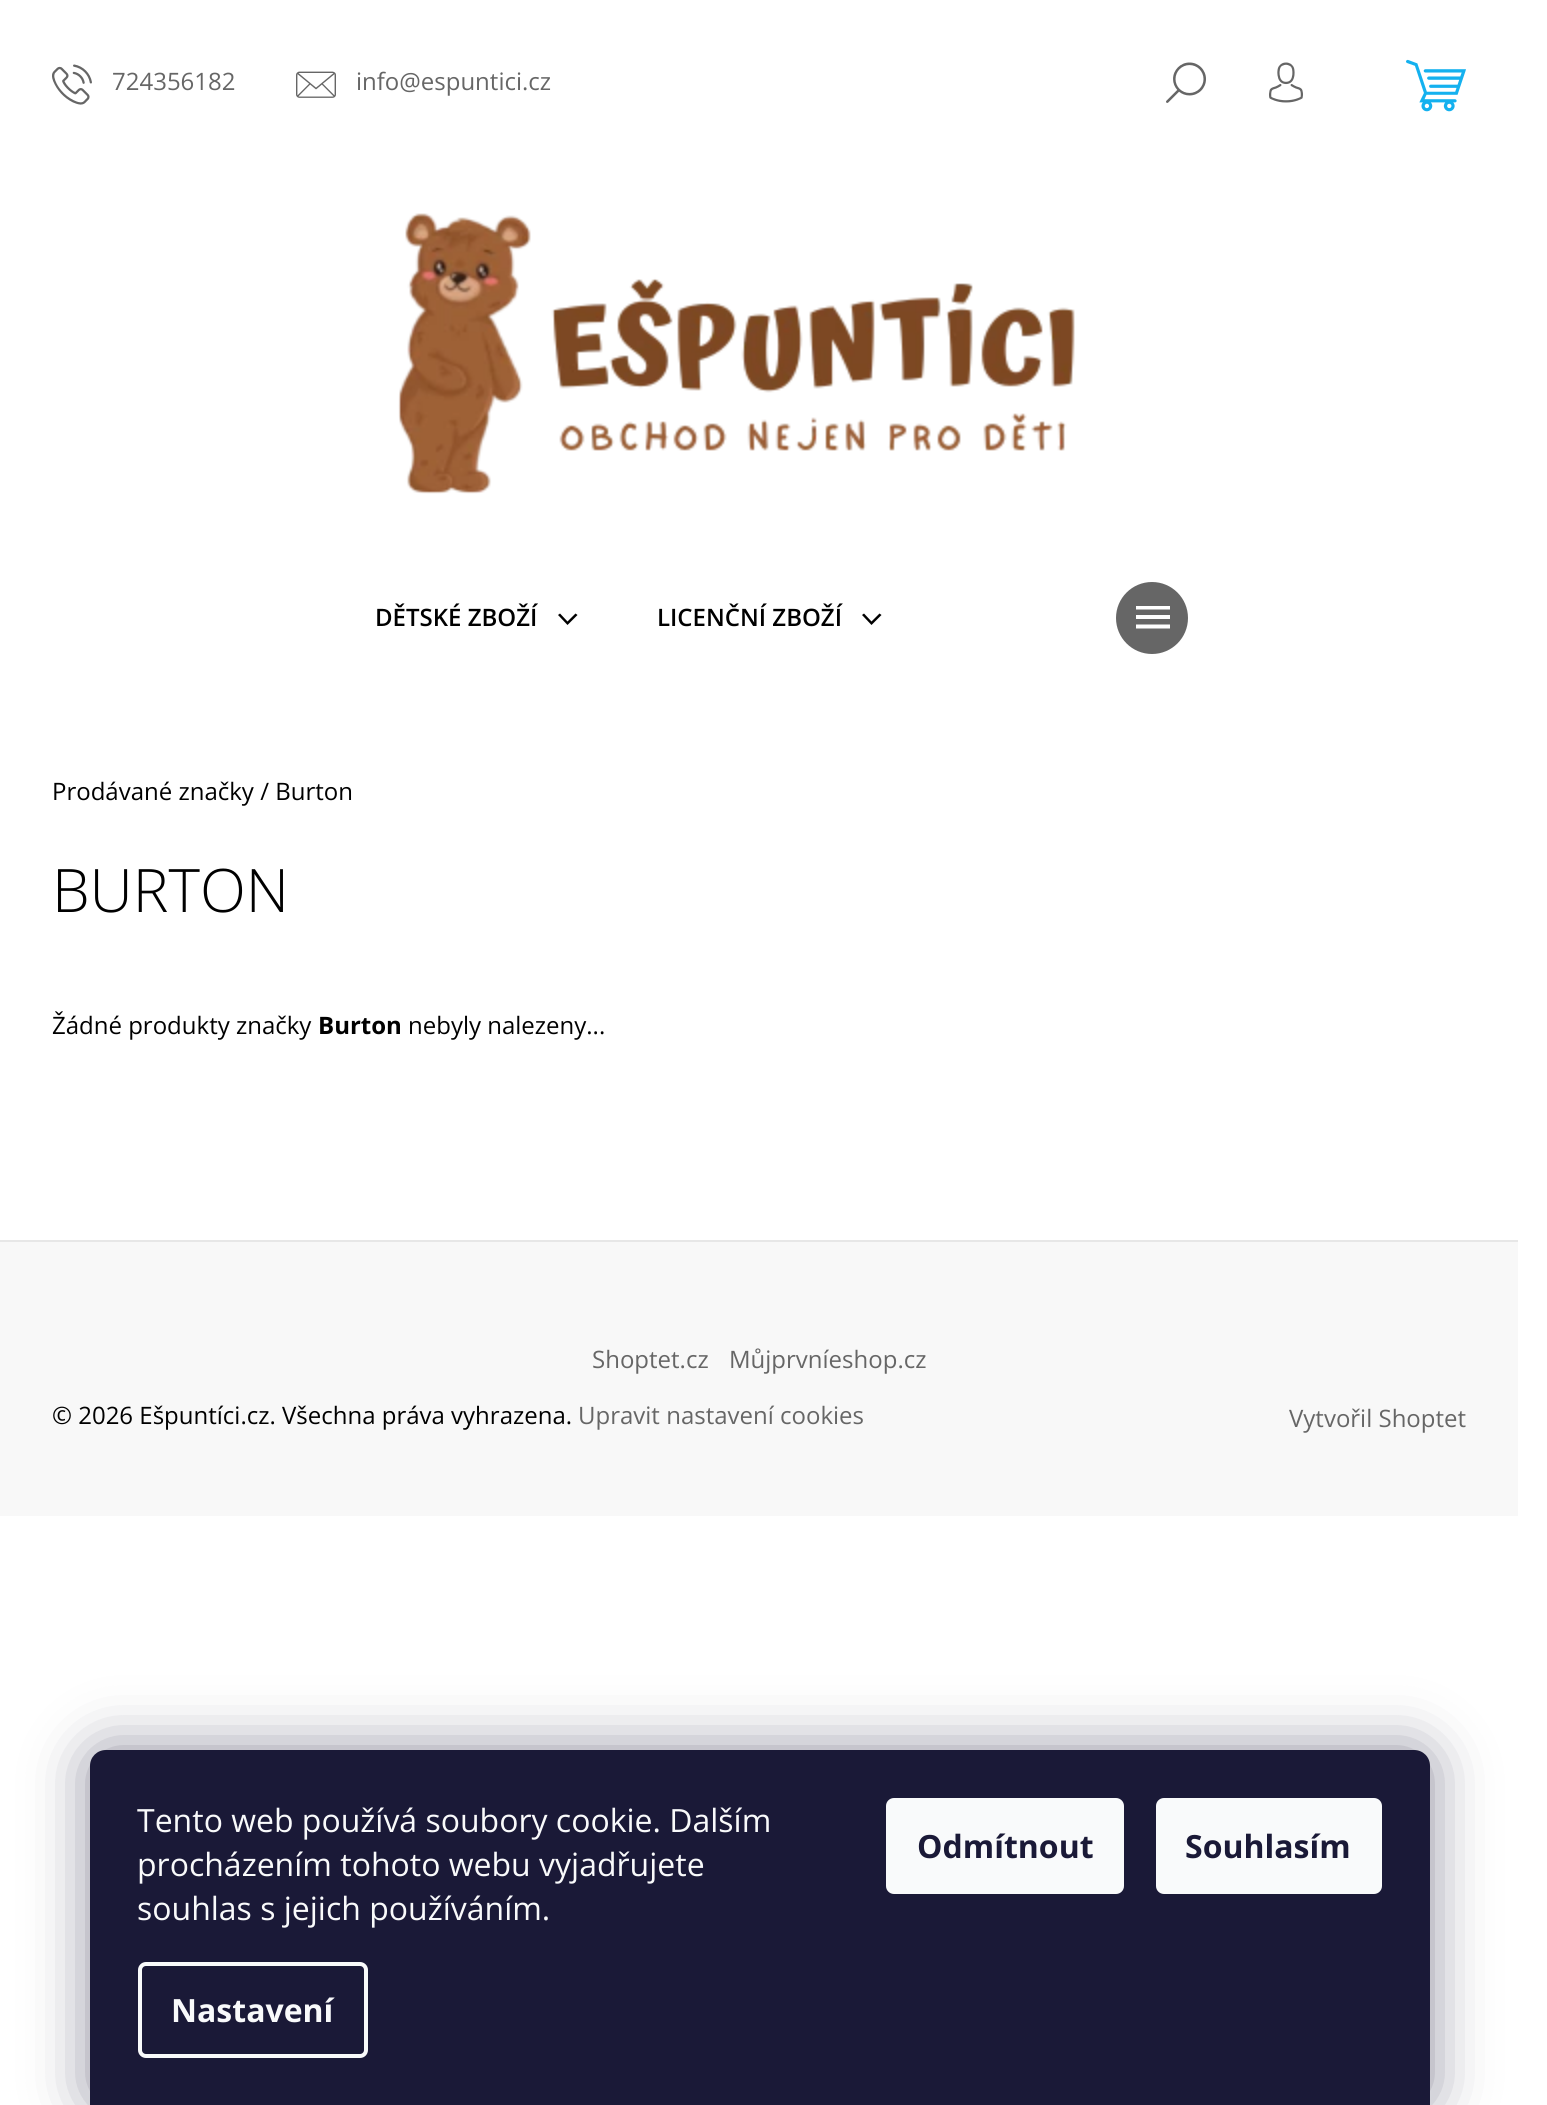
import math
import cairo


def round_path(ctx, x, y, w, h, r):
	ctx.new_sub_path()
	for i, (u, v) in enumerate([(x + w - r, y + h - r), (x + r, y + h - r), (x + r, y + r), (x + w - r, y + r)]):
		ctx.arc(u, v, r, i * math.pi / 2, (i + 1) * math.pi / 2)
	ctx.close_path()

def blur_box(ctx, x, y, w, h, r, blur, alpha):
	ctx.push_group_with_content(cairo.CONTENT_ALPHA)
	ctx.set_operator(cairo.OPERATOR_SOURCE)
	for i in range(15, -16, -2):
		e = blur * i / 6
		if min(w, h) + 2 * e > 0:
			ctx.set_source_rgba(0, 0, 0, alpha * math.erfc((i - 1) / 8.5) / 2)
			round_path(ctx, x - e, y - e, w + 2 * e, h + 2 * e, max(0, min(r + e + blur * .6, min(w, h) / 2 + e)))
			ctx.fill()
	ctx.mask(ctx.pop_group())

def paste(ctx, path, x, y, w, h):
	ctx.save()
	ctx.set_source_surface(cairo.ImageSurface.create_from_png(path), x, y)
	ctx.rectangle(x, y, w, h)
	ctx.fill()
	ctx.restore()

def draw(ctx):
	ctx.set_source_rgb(1, 1, 1)
	ctx.paint()
	paste(ctx, 'media/1.png', 52, 64, 40, 41)
	ctx.select_font_face('Open Sans')
	ctx.set_font_size(24)
	ctx.set_source_rgb(0.4, 0.4, 0.4)
	ctx.move_to(112, 90)
	ctx.show_text('724356182')
	paste(ctx, 'media/2.png', 296, 71, 40, 27)
	ctx.move_to(356, 90)
	ctx.show_text('info@espuntici.cz')
	paste(ctx, 'media/3.png', 1166, 62, 40, 41)
	paste(ctx, 'media/4.png', 1269, 62, 34, 41)
	paste(ctx, 'media/5.png', 1406, 59, 60, 53)
	paste(ctx, 'media/6.png', 398, 213, 677, 281)
	ctx.select_font_face('Open Sans SemiBold')
	ctx.set_source_rgb(0, 0, 0)
	ctx.move_to(375, 626)
	ctx.show_text('DĚTSKÉ ZBOŽÍ')
	ctx.new_path()
	ctx.move_to(558, 615)
	ctx.line_to(560, 613.5)
	ctx.line_to(567.5, 621.5)
	ctx.line_to(575.5, 613.5)
	ctx.line_to(577.5, 615)
	ctx.line_to(567.5, 625)
	ctx.close_path()
	ctx.fill()
	ctx.move_to(657, 626)
	ctx.show_text('LICENČNÍ ZBOŽÍ')
	ctx.new_path()
	ctx.move_to(862, 615)
	ctx.line_to(864, 613.5)
	ctx.line_to(871.5, 621.5)
	ctx.line_to(879.5, 613.5)
	ctx.line_to(881.5, 615)
	ctx.line_to(871.5, 625)
	ctx.close_path()
	ctx.fill()
	ctx.set_source_rgb(0.4, 0.4, 0.4)
	ctx.arc(1152, 618, 36, 0, 2 * math.pi)
	ctx.fill()
	ctx.set_source_rgb(1, 1, 1)
	ctx.new_path()
	ctx.move_to(1136, 628.5)
	ctx.line_to(1170, 628.5)
	ctx.line_to(1170, 624.5)
	ctx.line_to(1136, 624.5)
	ctx.close_path()
	ctx.move_to(1136, 619)
	ctx.line_to(1170, 619)
	ctx.line_to(1170, 615)
	ctx.line_to(1136, 615)
	ctx.close_path()
	ctx.move_to(1136, 606)
	ctx.line_to(1136, 609.5)
	ctx.line_to(1170, 609.5)
	ctx.line_to(1170, 606)
	ctx.close_path()
	ctx.fill()
	ctx.select_font_face('Open Sans')
	ctx.set_source_rgb(0, 0, 0)
	ctx.move_to(52, 800)
	ctx.show_text('Prodávané značky / Burton')
	ctx.select_font_face('Open Sans Light')
	ctx.set_font_size(60)
	ctx.move_to(52, 912)
	ctx.show_text('BURTON')
	ctx.select_font_face('Open Sans')
	ctx.set_font_size(24)
	ctx.move_to(52, 1034)
	ctx.show_text('Žádné produkty značky')
	ctx.select_font_face('Open Sans', cairo.FONT_SLANT_NORMAL, cairo.FONT_WEIGHT_BOLD)
	ctx.move_to(318, 1034)
	ctx.show_text('Burton')
	ctx.select_font_face('Open Sans')
	ctx.move_to(408, 1034)
	ctx.show_text('nebyly nalezeny...')
	ctx.set_source_rgb(0.969, 0.969, 0.969)
	ctx.rectangle(0, 1242, 1518, 274)
	ctx.fill()
	ctx.set_source_rgb(0.906, 0.906, 0.906)
	ctx.rectangle(0, 1240, 1518, 2)
	ctx.fill()
	ctx.set_source_rgb(0.4, 0.4, 0.4)
	ctx.move_to(592, 1368)
	ctx.show_text('Shoptet.cz')
	ctx.move_to(729, 1368)
	ctx.show_text('Můjprvníeshop.cz')
	ctx.set_source_rgb(0, 0, 0)
	ctx.move_to(52, 1424)
	ctx.show_text('© 2026 Ešpuntíci.cz. Všechna práva vyhrazena.')
	ctx.set_source_rgb(0.4, 0.4, 0.4)
	ctx.move_to(578, 1424)
	ctx.show_text('Upravit nastavení cookies')
	ctx.move_to(1289, 1427)
	ctx.show_text('Vytvořil Shoptet')
	ctx.set_source_rgb(0.106, 0.098, 0.224)
	blur_box(ctx, 90, 1750, 1340, 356, 16, 30, 0.5)
	ctx.set_source_rgb(0.102, 0.098, 0.216)
	ctx.new_path()
	ctx.move_to(106, 1750)
	ctx.line_to(1414, 1750)
	ctx.curve_to(1423, 1750, 1430, 1757, 1430, 1766)
	ctx.line_to(1430, 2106)
	ctx.line_to(90, 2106)
	ctx.line_to(90, 1766)
	ctx.curve_to(90, 1757, 97, 1750, 106, 1750)
	ctx.close_path()
	ctx.fill()
	ctx.set_font_size(32)
	ctx.set_source_rgb(0.973, 0.98, 0.984)
	for x, y, s in [
		(137, 1832, 'Tento web používá soubory cookie. Dalším'),
		(137, 1876, 'procházením tohoto webu vyjadřujete'),
		(137, 1920, 'souhlas s jejich používáním.'),
	]:
		ctx.move_to(x, y)
		ctx.show_text(s)
	round_path(ctx, 140, 1964, 226, 92, 6)
	ctx.set_line_width(4)
	ctx.stroke()
	ctx.select_font_face('Open Sans', cairo.FONT_SLANT_NORMAL, cairo.FONT_WEIGHT_BOLD)
	ctx.move_to(171, 2022)
	ctx.show_text('Nastavení')
	round_path(ctx, 886, 1798, 238, 96, 8)
	ctx.fill()
	ctx.set_source_rgb(0.102, 0.098, 0.216)
	ctx.move_to(917, 1858)
	ctx.show_text('Odmítnout')
	ctx.set_source_rgb(0.973, 0.98, 0.984)
	round_path(ctx, 1156, 1798, 226, 96, 8)
	ctx.fill()
	ctx.set_source_rgb(0.102, 0.098, 0.216)
	ctx.move_to(1185, 1858)
	ctx.show_text('Souhlasím')


surface = cairo.ImageSurface(cairo.FORMAT_RGB24, 1547, 2105)
ctx = cairo.Context(surface)
options = cairo.FontOptions()
options.set_hint_metrics(cairo.HINT_METRICS_OFF)
options.set_hint_style(cairo.HINT_STYLE_NONE)
ctx.set_font_options(options)
ctx.set_miter_limit(4)
draw(ctx)
surface.write_to_png('image.png')
